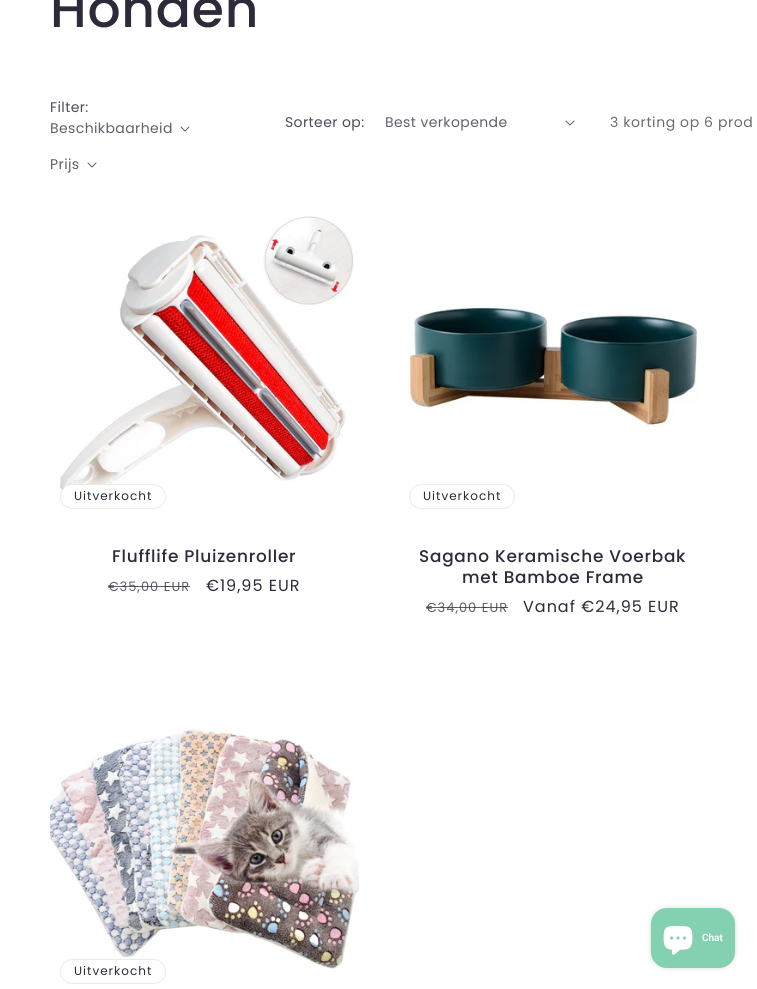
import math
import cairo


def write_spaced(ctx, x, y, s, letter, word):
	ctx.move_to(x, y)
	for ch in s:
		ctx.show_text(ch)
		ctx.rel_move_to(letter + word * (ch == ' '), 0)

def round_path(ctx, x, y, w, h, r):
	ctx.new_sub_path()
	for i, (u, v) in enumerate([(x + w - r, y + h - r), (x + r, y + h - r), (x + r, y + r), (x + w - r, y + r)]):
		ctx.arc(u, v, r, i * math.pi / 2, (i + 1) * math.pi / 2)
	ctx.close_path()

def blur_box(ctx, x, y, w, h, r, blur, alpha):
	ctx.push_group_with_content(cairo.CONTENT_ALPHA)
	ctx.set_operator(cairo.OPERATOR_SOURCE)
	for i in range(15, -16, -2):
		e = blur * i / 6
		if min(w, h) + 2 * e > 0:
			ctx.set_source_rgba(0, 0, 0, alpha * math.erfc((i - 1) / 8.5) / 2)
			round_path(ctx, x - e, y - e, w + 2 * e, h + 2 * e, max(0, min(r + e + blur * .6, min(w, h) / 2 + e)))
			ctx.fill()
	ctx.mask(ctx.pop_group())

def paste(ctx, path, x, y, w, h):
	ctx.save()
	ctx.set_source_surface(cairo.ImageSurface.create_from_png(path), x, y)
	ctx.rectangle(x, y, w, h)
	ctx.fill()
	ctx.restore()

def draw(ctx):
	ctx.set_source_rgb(1, 1, 1)
	ctx.paint()
	ctx.select_font_face('Poppins Medium')
	ctx.set_font_size(52)
	ctx.set_source_rgb(0.18, 0.165, 0.224)
	write_spaced(ctx, 50, 27, 'Honden', 0.75, 0)
	ctx.select_font_face('Poppins')
	ctx.set_font_size(14)
	ctx.set_source_rgb(0.302, 0.29, 0.341)
	write_spaced(ctx, 50, 112, 'Filter:', 0.4, 0)
	ctx.set_source_rgb(0.384, 0.373, 0.42)
	write_spaced(ctx, 50, 133, 'Beschikbaarheid', 0.4, 0)
	paste(ctx, 'media/1.png', 180, 126, 10, 6)
	write_spaced(ctx, 50, 169, 'Prijs', 0.4, 0)
	paste(ctx, 'media/1.png', 87, 162, 10, 6)
	ctx.set_source_rgb(0.302, 0.29, 0.341)
	write_spaced(ctx, 285, 127, 'Sorteer op:', 0.4, 0)
	ctx.set_source_rgb(0.384, 0.373, 0.42)
	write_spaced(ctx, 385, 127, 'Best verkopende', 0.4, 0)
	paste(ctx, 'media/1.png', 565, 120, 10, 6)
	ctx.set_source_rgb(0.427, 0.416, 0.455)
	write_spaced(ctx, 610, 127, '3 korting op 6 prod', 0.6, 0)
	paste(ctx, 'media/2.png', 59, 216, 296, 285)
	ctx.set_source_rgb(1, 1, 1)
	round_path(ctx, 60, 484, 106, 25, 12.5)
	ctx.fill()
	round_path(ctx, 60.5, 484.5, 105, 24, 12)
	ctx.set_source_rgba(0.18, 0.165, 0.224, 0.1)
	ctx.set_line_width(1)
	ctx.stroke()
	ctx.set_font_size(12)
	ctx.set_source_rgb(0.18, 0.165, 0.224)
	write_spaced(ctx, 74, 500, 'Uitverkocht', 1, 0)
	ctx.select_font_face('Poppins Medium')
	ctx.set_font_size(16.9)
	write_spaced(ctx, 112, 562, 'Flufflife Pluizenroller', 0.75, 0)
	ctx.select_font_face('Poppins')
	ctx.set_font_size(13)
	ctx.set_source_rgb(0.384, 0.373, 0.42)
	write_spaced(ctx, 108, 591, '€35,00 EUR', 1, 0)
	ctx.set_source_rgba(0.18, 0.165, 0.224, 0.75)
	ctx.rectangle(108, 586, 82, 1)
	ctx.fill()
	ctx.set_font_size(16)
	ctx.set_source_rgb(0.18, 0.165, 0.224)
	write_spaced(ctx, 206, 591, '€19,95 EUR', 1, 0)
	paste(ctx, 'media/3.png', 408, 223, 300, 297)
	round_path(ctx, 409.5, 484.5, 105, 24, 12)
	ctx.set_source_rgb(0.918, 0.918, 0.922)
	ctx.stroke()
	ctx.set_font_size(12)
	ctx.set_source_rgb(0.18, 0.165, 0.224)
	write_spaced(ctx, 423, 500, 'Uitverkocht', 1, 0)
	ctx.select_font_face('Poppins Medium')
	ctx.set_font_size(16.9)
	write_spaced(ctx, 419, 562, 'Sagano Keramische Voerbak', 0.75, 0)
	write_spaced(ctx, 462, 583, 'met Bamboe Frame', 0.75, 0)
	ctx.select_font_face('Poppins')
	ctx.set_font_size(13)
	ctx.set_source_rgb(0.384, 0.373, 0.42)
	write_spaced(ctx, 426, 612, '€34,00 EUR', 1, 0)
	ctx.set_source_rgba(0.18, 0.165, 0.224, 0.75)
	ctx.rectangle(426, 607, 82, 1)
	ctx.fill()
	ctx.set_font_size(16)
	ctx.set_source_rgb(0.18, 0.165, 0.224)
	write_spaced(ctx, 523, 612, 'Vanaf €24,95 EUR', 1, 0)
	paste(ctx, 'media/4.png', 50, 728, 309, 241)
	round_path(ctx, 60.5, 959.5, 105, 24, 12)
	ctx.set_source_rgb(0.918, 0.918, 0.922)
	ctx.stroke()
	ctx.set_font_size(12)
	ctx.set_source_rgb(0.18, 0.165, 0.224)
	write_spaced(ctx, 74, 975, 'Uitverkocht', 1, 0)
	ctx.set_source_rgb(0, 0, 0)
	blur_box(ctx, 651, 908, 84, 60, 16, 2.5, 0.15)
	ctx.set_source_rgb(0.518, 0.82, 0.698)
	round_path(ctx, 651, 908, 84, 60, 16)
	ctx.fill()
	paste(ctx, 'media/5.png', 663, 926, 30, 29)
	ctx.select_font_face('Roboto SemiBold')
	ctx.set_font_size(10)
	ctx.set_source_rgb(1, 1, 1)
	ctx.move_to(702, 941)
	ctx.show_text('Chat')


surface = cairo.ImageSurface(cairo.FORMAT_RGB24, 757, 989)
ctx = cairo.Context(surface)
options = cairo.FontOptions()
options.set_hint_metrics(cairo.HINT_METRICS_OFF)
options.set_hint_style(cairo.HINT_STYLE_NONE)
ctx.set_font_options(options)
ctx.set_miter_limit(4)
draw(ctx)
surface.write_to_png('image.png')
